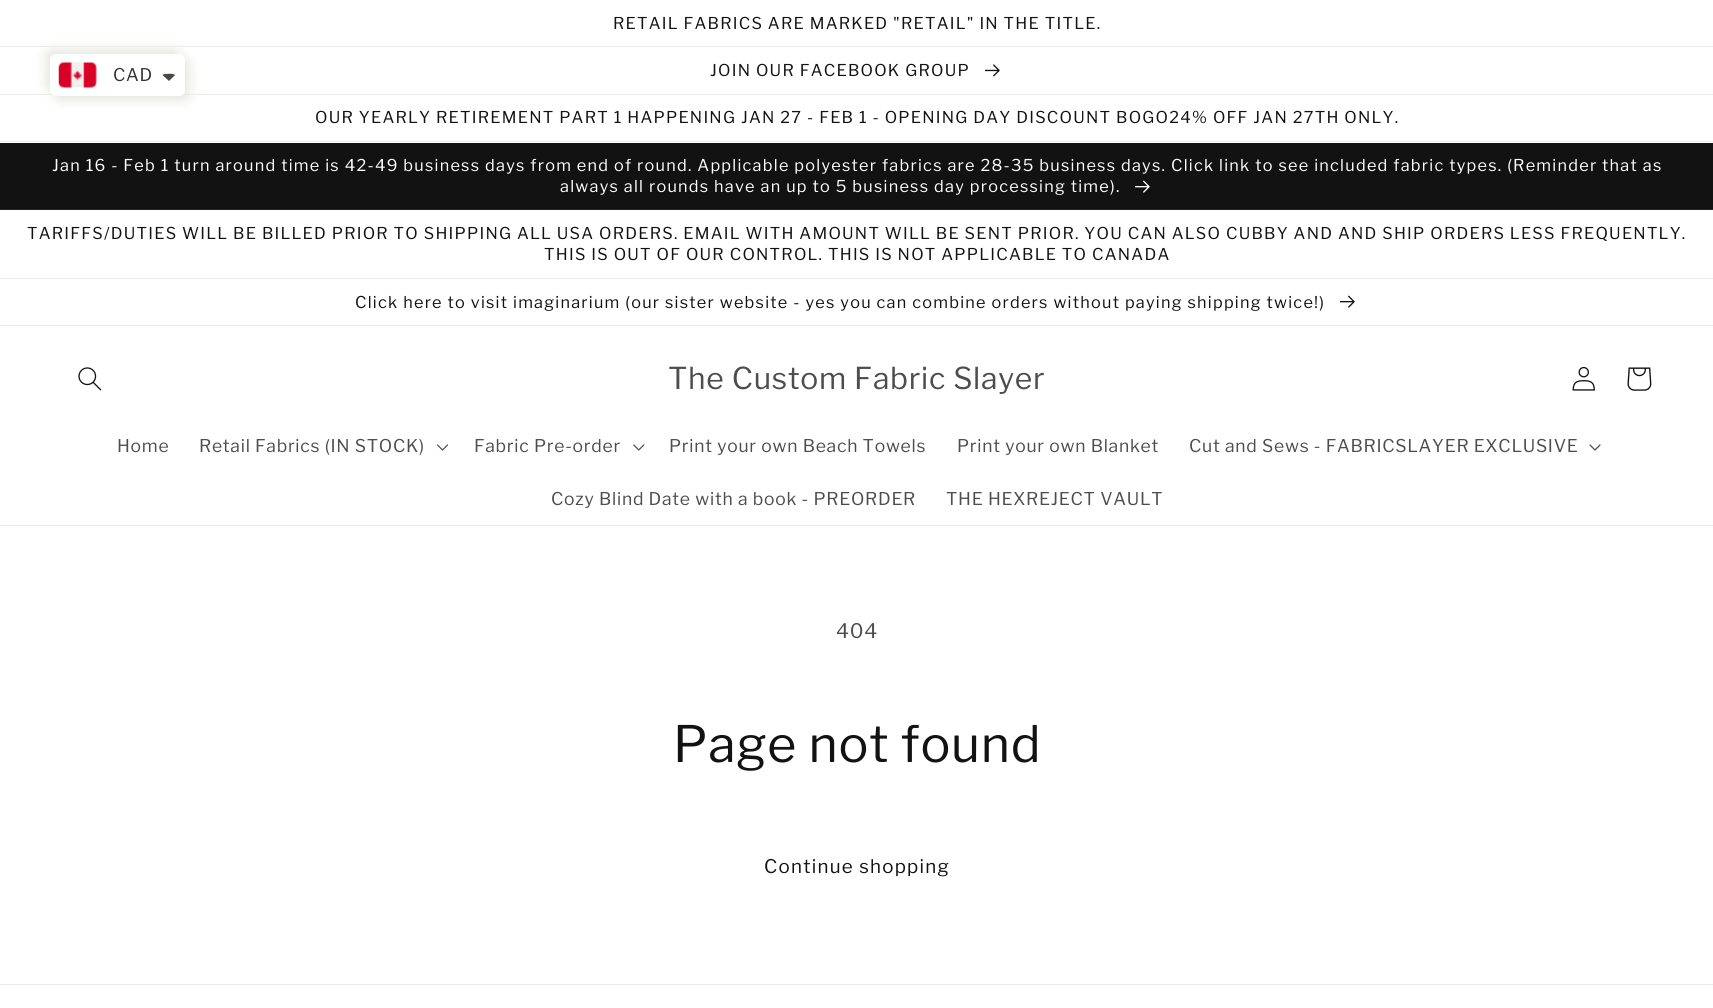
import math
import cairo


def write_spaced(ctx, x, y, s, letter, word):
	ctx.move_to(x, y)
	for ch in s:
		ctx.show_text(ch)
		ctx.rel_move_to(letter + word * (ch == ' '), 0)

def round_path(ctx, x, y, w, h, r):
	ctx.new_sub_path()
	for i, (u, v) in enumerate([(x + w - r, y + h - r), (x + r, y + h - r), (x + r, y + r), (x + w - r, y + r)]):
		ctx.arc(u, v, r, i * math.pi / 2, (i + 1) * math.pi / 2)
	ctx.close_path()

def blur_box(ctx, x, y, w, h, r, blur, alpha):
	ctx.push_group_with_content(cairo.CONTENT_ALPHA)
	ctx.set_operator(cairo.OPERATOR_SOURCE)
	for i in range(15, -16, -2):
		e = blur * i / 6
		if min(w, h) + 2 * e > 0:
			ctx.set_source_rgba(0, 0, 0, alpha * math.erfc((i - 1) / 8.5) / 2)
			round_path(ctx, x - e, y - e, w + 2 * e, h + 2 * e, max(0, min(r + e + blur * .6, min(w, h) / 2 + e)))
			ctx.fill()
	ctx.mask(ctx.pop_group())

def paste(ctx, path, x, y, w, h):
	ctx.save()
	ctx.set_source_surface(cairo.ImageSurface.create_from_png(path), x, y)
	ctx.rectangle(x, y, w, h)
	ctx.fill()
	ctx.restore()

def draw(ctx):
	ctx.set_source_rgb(1, 1, 1)
	ctx.paint()
	ctx.set_source_rgb(0.925, 0.925, 0.925)
	ctx.rectangle(0, 46, 1713, 1)
	ctx.fill()
	ctx.select_font_face('Libre Franklin')
	ctx.set_font_size(16.25)
	ctx.set_source_rgb(0.071, 0.071, 0.071)
	write_spaced(ctx, 613, 29, 'RETAIL FABRICS ARE MARKED "RETAIL" IN THE TITLE.', 1.25, 0)
	ctx.set_source_rgb(0.925, 0.925, 0.925)
	ctx.rectangle(0, 94, 1713, 1)
	ctx.fill()
	ctx.set_source_rgb(0.071, 0.071, 0.071)
	write_spaced(ctx, 710, 76, 'JOIN OUR FACEBOOK GROUP', 1.25, 0)
	paste(ctx, 'media/1.png', 985, 64, 15, 13)
	ctx.set_source_rgb(0.925, 0.925, 0.925)
	ctx.rectangle(0, 141, 1713, 1)
	ctx.fill()
	ctx.set_source_rgb(0.071, 0.071, 0.071)
	write_spaced(ctx, 315, 123, 'OUR YEARLY RETIREMENT PART 1 HAPPENING JAN 27 - FEB 1 - OPENING DAY DISCOUNT BOGO24% OFF JAN 27TH ONLY.', 1.25, 0)
	ctx.rectangle(0, 143, 1713, 66)
	ctx.fill()
	ctx.set_source_rgb(0.145, 0.145, 0.145)
	ctx.rectangle(0, 209, 1713, 1)
	ctx.fill()
	ctx.set_source_rgb(1, 1, 1)
	write_spaced(ctx, 52, 171, 'Jan 16 - Feb 1 turn around time is 42-49 business days from end of round. Applicable polyester fabrics are 28-35 business days. Click link to see included fabric types. (Reminder that as', 1.25, 0)
	write_spaced(ctx, 560, 192, 'always all rounds have an up to 5 business day processing time).', 1.25, 0)
	paste(ctx, 'media/2.png', 1135, 180, 15, 13)
	ctx.set_source_rgb(0.925, 0.925, 0.925)
	ctx.rectangle(0, 278, 1713, 1)
	ctx.fill()
	ctx.set_source_rgb(0.071, 0.071, 0.071)
	write_spaced(ctx, 27, 239, 'TARIFFS/DUTIES WILL BE BILLED PRIOR TO SHIPPING ALL USA ORDERS. EMAIL WITH AMOUNT WILL BE SENT PRIOR. YOU CAN ALSO CUBBY AND AND SHIP ORDERS LESS FREQUENTLY.', 1.25, 0)
	write_spaced(ctx, 544, 260, 'THIS IS OUT OF OUR CONTROL. THIS IS NOT APPLICABLE TO CANADA', 1.25, 0)
	ctx.set_source_rgb(0.925, 0.925, 0.925)
	ctx.rectangle(0, 325, 1713, 1)
	ctx.fill()
	ctx.set_source_rgb(0.071, 0.071, 0.071)
	write_spaced(ctx, 355, 308, 'Click here to visit imaginarium (our sister website - yes you can combine orders without paying shipping twice!)', 1.25, 0)
	paste(ctx, 'media/3.png', 1340, 295, 15, 13)
	ctx.set_source_rgb(0.91, 0.91, 0.886)
	blur_box(ctx, 45, 49, 135, 42, 6, 5.5, 1)
	blur_box(ctx, 55, 59, 135, 42, 6, 5.5, 1)
	ctx.set_source_rgb(1, 1, 1)
	round_path(ctx, 50, 54, 135, 42, 6)
	ctx.fill()
	paste(ctx, 'media/4.png', 58, 62, 39, 26)
	ctx.set_font_size(17.5)
	ctx.set_source_rgb(0.2, 0.2, 0.2)
	write_spaced(ctx, 113, 81, 'CAD', 0.75, 0)
	ctx.set_source_rgb(0.278, 0.286, 0.259)
	ctx.new_path()
	ctx.move_to(165, 74)
	ctx.curve_to(167.5, 74, 173, 73, 175, 75)
	ctx.line_to(169, 81)
	ctx.line_to(162.5, 75)
	ctx.curve_to(163, 74.5, 164, 74, 165, 74)
	ctx.close_path()
	ctx.fill()
	ctx.set_source_rgb(0.925, 0.925, 0.925)
	ctx.rectangle(0, 525, 1713, 1)
	ctx.fill()
	paste(ctx, 'media/5.png', 78, 367, 24, 24)
	ctx.set_font_size(30)
	ctx.set_source_rgb(0.302, 0.302, 0.302)
	write_spaced(ctx, 668, 389, 'The Custom Fabric Slayer', 0.75, 0)
	paste(ctx, 'media/6.png', 1572, 366, 23, 25)
	paste(ctx, 'media/7.png', 1627, 367, 25, 24)
	ctx.set_font_size(17.5)
	write_spaced(ctx, 117, 452, 'Home', 0.75, 0)
	write_spaced(ctx, 199, 452, 'Retail Fabrics (IN STOCK)', 0.75, 0)
	paste(ctx, 'media/8.png', 437, 444, 11, 7)
	write_spaced(ctx, 474, 452, 'Fabric Pre-order', 0.75, 0)
	paste(ctx, 'media/9.png', 633, 444, 12, 7)
	for x, y, s in [
		(669, 452, 'Print your own Beach Towels'),
		(957, 452, 'Print your own Blanket'),
		(1189, 452, 'Cut and Sews - FABRICSLAYER EXCLUSIVE'),
	]:
		write_spaced(ctx, x, y, s, 0.75, 0)
	paste(ctx, 'media/10.png', 1589, 444, 12, 7)
	write_spaced(ctx, 551, 505, 'Cozy Blind Date with a book - PREORDER', 0.75, 0)
	write_spaced(ctx, 946, 505, 'THE HEXREJECT VAULT', 0.75, 0)
	ctx.set_font_size(20)
	write_spaced(ctx, 836, 638, '404', 0.75, 0)
	ctx.set_font_size(50)
	ctx.set_source_rgb(0.071, 0.071, 0.071)
	write_spaced(ctx, 673, 762, 'Page not found', 0.75, 0)
	ctx.set_font_size(18.75)
	write_spaced(ctx, 764, 873, 'Continue shopping', 1.25, 0)
	ctx.set_source_rgb(0.925, 0.925, 0.925)
	ctx.rectangle(0, 984, 1713, 1)
	ctx.fill()


surface = cairo.ImageSurface(cairo.FORMAT_RGB24, 1713, 1008)
ctx = cairo.Context(surface)
options = cairo.FontOptions()
options.set_hint_metrics(cairo.HINT_METRICS_OFF)
options.set_hint_style(cairo.HINT_STYLE_NONE)
ctx.set_font_options(options)
ctx.set_miter_limit(4)
draw(ctx)
surface.write_to_png('image.png')
